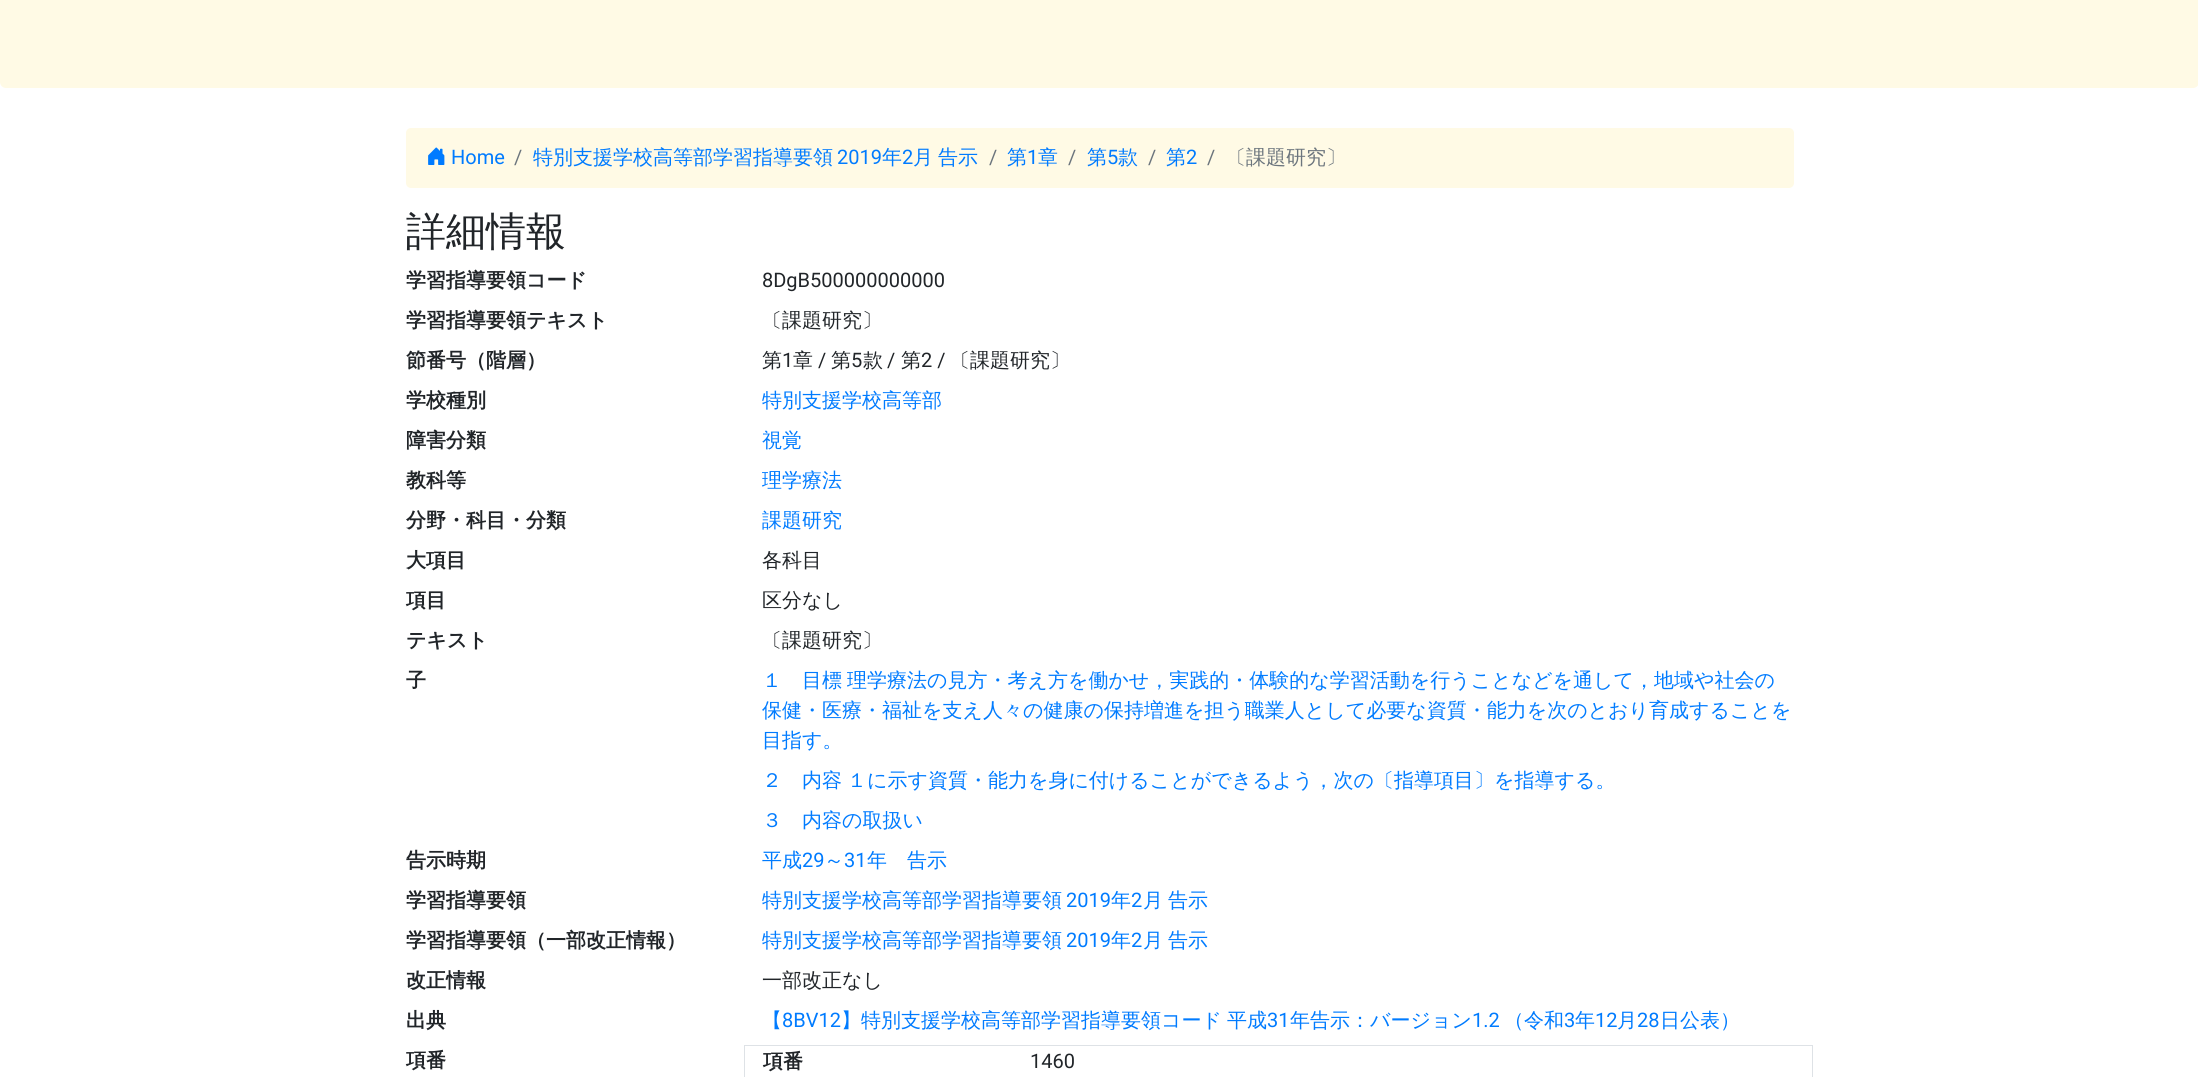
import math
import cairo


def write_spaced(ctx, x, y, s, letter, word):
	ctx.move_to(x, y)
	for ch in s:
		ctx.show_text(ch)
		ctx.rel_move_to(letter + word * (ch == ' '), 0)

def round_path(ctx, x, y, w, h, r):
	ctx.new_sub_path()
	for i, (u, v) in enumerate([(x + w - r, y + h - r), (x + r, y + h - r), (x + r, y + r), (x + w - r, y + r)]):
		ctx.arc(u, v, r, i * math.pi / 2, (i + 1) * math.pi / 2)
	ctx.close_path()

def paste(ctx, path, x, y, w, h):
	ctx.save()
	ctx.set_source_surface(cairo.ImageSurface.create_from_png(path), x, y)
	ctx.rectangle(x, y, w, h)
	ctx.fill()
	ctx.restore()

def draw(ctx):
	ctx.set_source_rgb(1, 1, 1)
	ctx.paint()
	ctx.set_source_rgb(1, 0.98, 0.898)
	round_path(ctx, 0, -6, 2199, 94, 6)
	ctx.fill()
	round_path(ctx, 406, 128, 1388, 60, 5)
	ctx.fill()
	paste(ctx, 'media/1.png', 428, 147, 17, 18)
	ctx.select_font_face('Roboto')
	ctx.set_font_size(20)
	ctx.set_source_rgb(0, 0.482, 1)
	ctx.move_to(451, 164)
	ctx.show_text('Home')
	ctx.set_source_rgb(0.424, 0.459, 0.49)
	ctx.move_to(514, 164)
	ctx.show_text('/')
	ctx.select_font_face('WenQuanYi Zen Hei Medium')
	ctx.set_source_rgb(0, 0.482, 1)
	ctx.move_to(533, 164)
	ctx.show_text('特別支援学校高等部学習指導要領')
	ctx.select_font_face('Roboto')
	ctx.move_to(837, 164)
	ctx.show_text('2019')
	ctx.select_font_face('WenQuanYi Zen Hei Medium')
	ctx.move_to(882, 164)
	ctx.show_text('年')
	ctx.select_font_face('Roboto')
	ctx.move_to(902, 164)
	ctx.show_text('2')
	ctx.select_font_face('WenQuanYi Zen Hei Medium')
	write_spaced(ctx, 913, 164, '月 告示', 0, -1)
	ctx.select_font_face('Roboto')
	ctx.set_source_rgb(0.424, 0.459, 0.49)
	ctx.move_to(989, 164)
	ctx.show_text('/')
	ctx.select_font_face('WenQuanYi Zen Hei Medium')
	ctx.set_source_rgb(0, 0.482, 1)
	ctx.move_to(1007, 164)
	ctx.show_text('第')
	ctx.select_font_face('Roboto')
	ctx.move_to(1027, 164)
	ctx.show_text('1')
	ctx.select_font_face('WenQuanYi Zen Hei Medium')
	ctx.move_to(1038, 164)
	ctx.show_text('章')
	ctx.select_font_face('Roboto')
	ctx.set_source_rgb(0.424, 0.459, 0.49)
	ctx.move_to(1068, 164)
	ctx.show_text('/')
	ctx.select_font_face('WenQuanYi Zen Hei Medium')
	ctx.set_source_rgb(0, 0.482, 1)
	ctx.move_to(1087, 164)
	ctx.show_text('第')
	ctx.select_font_face('Roboto')
	ctx.move_to(1107, 164)
	ctx.show_text('5')
	ctx.select_font_face('WenQuanYi Zen Hei Medium')
	ctx.move_to(1118, 164)
	ctx.show_text('款')
	ctx.select_font_face('Roboto')
	ctx.set_source_rgb(0.424, 0.459, 0.49)
	ctx.move_to(1148, 164)
	ctx.show_text('/')
	ctx.select_font_face('WenQuanYi Zen Hei Medium')
	ctx.set_source_rgb(0, 0.482, 1)
	ctx.move_to(1166, 164)
	ctx.show_text('第')
	ctx.select_font_face('Roboto')
	ctx.move_to(1186, 164)
	ctx.show_text('2')
	ctx.set_source_rgb(0.424, 0.459, 0.49)
	ctx.move_to(1207, 164)
	ctx.show_text('/')
	ctx.select_font_face('WenQuanYi Zen Hei Medium')
	ctx.move_to(1226, 164)
	ctx.show_text('〔課題研究〕')
	ctx.set_font_size(40)
	ctx.set_source_rgb(0.129, 0.145, 0.161)
	ctx.move_to(406, 245)
	ctx.show_text('詳細情報')
	ctx.select_font_face('WenQuanYi Zen Hei', cairo.FONT_SLANT_NORMAL, cairo.FONT_WEIGHT_BOLD)
	ctx.set_font_size(20)
	ctx.move_to(406, 287)
	ctx.show_text('学習指導要領コード')
	ctx.select_font_face('Roboto')
	ctx.move_to(762, 287)
	ctx.show_text('8DgB500000000000')
	ctx.select_font_face('WenQuanYi Zen Hei', cairo.FONT_SLANT_NORMAL, cairo.FONT_WEIGHT_BOLD)
	ctx.move_to(406, 327)
	ctx.show_text('学習指導要領テキスト')
	ctx.select_font_face('WenQuanYi Zen Hei Medium')
	ctx.move_to(762, 327)
	ctx.show_text('〔課題研究〕')
	ctx.select_font_face('WenQuanYi Zen Hei', cairo.FONT_SLANT_NORMAL, cairo.FONT_WEIGHT_BOLD)
	ctx.move_to(406, 367)
	ctx.show_text('節番号（階層）')
	ctx.select_font_face('WenQuanYi Zen Hei Medium')
	ctx.move_to(762, 367)
	ctx.show_text('第')
	ctx.select_font_face('Roboto')
	ctx.move_to(782, 367)
	ctx.show_text('1')
	ctx.select_font_face('WenQuanYi Zen Hei Medium')
	ctx.move_to(793, 367)
	ctx.show_text('章')
	ctx.select_font_face('Roboto')
	ctx.move_to(818, 367)
	ctx.show_text('/')
	ctx.select_font_face('WenQuanYi Zen Hei Medium')
	ctx.move_to(831, 367)
	ctx.show_text('第')
	ctx.select_font_face('Roboto')
	ctx.move_to(851, 367)
	ctx.show_text('5')
	ctx.select_font_face('WenQuanYi Zen Hei Medium')
	ctx.move_to(863, 367)
	ctx.show_text('款')
	ctx.select_font_face('Roboto')
	ctx.move_to(887, 367)
	ctx.show_text('/')
	ctx.select_font_face('WenQuanYi Zen Hei Medium')
	ctx.move_to(901, 367)
	ctx.show_text('第')
	ctx.select_font_face('Roboto')
	ctx.move_to(921, 367)
	ctx.show_text('2 /')
	ctx.select_font_face('WenQuanYi Zen Hei Medium')
	ctx.move_to(950, 367)
	ctx.show_text('〔課題研究〕')
	ctx.select_font_face('WenQuanYi Zen Hei', cairo.FONT_SLANT_NORMAL, cairo.FONT_WEIGHT_BOLD)
	ctx.move_to(406, 407)
	ctx.show_text('学校種別')
	ctx.select_font_face('WenQuanYi Zen Hei Medium')
	ctx.set_source_rgb(0, 0.482, 1)
	ctx.move_to(762, 407)
	ctx.show_text('特別支援学校高等部')
	ctx.select_font_face('WenQuanYi Zen Hei', cairo.FONT_SLANT_NORMAL, cairo.FONT_WEIGHT_BOLD)
	ctx.set_source_rgb(0.129, 0.145, 0.161)
	ctx.move_to(406, 447)
	ctx.show_text('障害分類')
	ctx.select_font_face('WenQuanYi Zen Hei Medium')
	ctx.set_source_rgb(0, 0.482, 1)
	ctx.move_to(762, 447)
	ctx.show_text('視覚')
	ctx.select_font_face('WenQuanYi Zen Hei', cairo.FONT_SLANT_NORMAL, cairo.FONT_WEIGHT_BOLD)
	ctx.set_source_rgb(0.129, 0.145, 0.161)
	ctx.move_to(406, 487)
	ctx.show_text('教科等')
	ctx.select_font_face('WenQuanYi Zen Hei Medium')
	ctx.set_source_rgb(0, 0.482, 1)
	ctx.move_to(762, 487)
	ctx.show_text('理学療法')
	ctx.select_font_face('WenQuanYi Zen Hei', cairo.FONT_SLANT_NORMAL, cairo.FONT_WEIGHT_BOLD)
	ctx.set_source_rgb(0.129, 0.145, 0.161)
	ctx.move_to(406, 527)
	ctx.show_text('分野・科目・分類')
	ctx.select_font_face('WenQuanYi Zen Hei Medium')
	ctx.set_source_rgb(0, 0.482, 1)
	ctx.move_to(762, 527)
	ctx.show_text('課題研究')
	ctx.select_font_face('WenQuanYi Zen Hei', cairo.FONT_SLANT_NORMAL, cairo.FONT_WEIGHT_BOLD)
	ctx.set_source_rgb(0.129, 0.145, 0.161)
	ctx.move_to(406, 567)
	ctx.show_text('大項目')
	ctx.select_font_face('WenQuanYi Zen Hei Medium')
	ctx.move_to(762, 567)
	ctx.show_text('各科目')
	ctx.select_font_face('WenQuanYi Zen Hei', cairo.FONT_SLANT_NORMAL, cairo.FONT_WEIGHT_BOLD)
	ctx.move_to(406, 607)
	ctx.show_text('項目')
	ctx.select_font_face('WenQuanYi Zen Hei Medium')
	ctx.move_to(762, 607)
	ctx.show_text('区分なし')
	ctx.select_font_face('WenQuanYi Zen Hei', cairo.FONT_SLANT_NORMAL, cairo.FONT_WEIGHT_BOLD)
	ctx.move_to(406, 647)
	ctx.show_text('テキスト')
	ctx.select_font_face('WenQuanYi Zen Hei Medium')
	ctx.move_to(762, 647)
	ctx.show_text('〔課題研究〕')
	ctx.select_font_face('WenQuanYi Zen Hei', cairo.FONT_SLANT_NORMAL, cairo.FONT_WEIGHT_BOLD)
	ctx.move_to(406, 687)
	ctx.show_text('子')
	ctx.select_font_face('WenQuanYi Zen Hei Medium')
	ctx.set_source_rgb(0, 0.482, 1)
	write_spaced(ctx, 762, 687, '１　目標 理学療法の見方・考え方を働かせ，実践的・体験的な学習活動を行うことなどを通して，地域や社会の', 0, -1)
	ctx.move_to(762, 717)
	ctx.show_text('保健・医療・福祉を支え人々の健康の保持増進を担う職業人として必要な資質・能力を次のとおり育成することを')
	ctx.move_to(762, 747)
	ctx.show_text('目指す。')
	write_spaced(ctx, 762, 787, '２　内容 １に示す資質・能力を身に付けることができるよう，次の〔指導項目〕を指導する。', 0, -1)
	ctx.move_to(762, 827)
	ctx.show_text('３　内容の取扱い')
	ctx.select_font_face('WenQuanYi Zen Hei', cairo.FONT_SLANT_NORMAL, cairo.FONT_WEIGHT_BOLD)
	ctx.set_source_rgb(0.129, 0.145, 0.161)
	ctx.move_to(406, 867)
	ctx.show_text('告示時期')
	ctx.select_font_face('WenQuanYi Zen Hei Medium')
	ctx.set_source_rgb(0, 0.482, 1)
	ctx.move_to(762, 867)
	ctx.show_text('平成')
	ctx.select_font_face('Roboto')
	ctx.move_to(802, 867)
	ctx.show_text('29')
	ctx.select_font_face('WenQuanYi Zen Hei Medium')
	ctx.move_to(824, 867)
	ctx.show_text('～')
	ctx.select_font_face('Roboto')
	ctx.move_to(844, 867)
	ctx.show_text('31')
	ctx.select_font_face('WenQuanYi Zen Hei Medium')
	ctx.move_to(867, 867)
	ctx.show_text('年　告示')
	ctx.select_font_face('WenQuanYi Zen Hei', cairo.FONT_SLANT_NORMAL, cairo.FONT_WEIGHT_BOLD)
	ctx.set_source_rgb(0.129, 0.145, 0.161)
	ctx.move_to(406, 907)
	ctx.show_text('学習指導要領')
	ctx.select_font_face('WenQuanYi Zen Hei Medium')
	ctx.set_source_rgb(0, 0.482, 1)
	ctx.move_to(762, 907)
	ctx.show_text('特別支援学校高等部学習指導要領')
	ctx.select_font_face('Roboto')
	ctx.move_to(1066, 907)
	ctx.show_text('2019')
	ctx.select_font_face('WenQuanYi Zen Hei Medium')
	ctx.move_to(1111, 907)
	ctx.show_text('年')
	ctx.select_font_face('Roboto')
	ctx.move_to(1131, 907)
	ctx.show_text('2')
	ctx.select_font_face('WenQuanYi Zen Hei Medium')
	write_spaced(ctx, 1143, 907, '月 告示', 0, -1)
	ctx.select_font_face('WenQuanYi Zen Hei', cairo.FONT_SLANT_NORMAL, cairo.FONT_WEIGHT_BOLD)
	ctx.set_source_rgb(0.129, 0.145, 0.161)
	ctx.move_to(406, 947)
	ctx.show_text('学習指導要領（一部改正情報）')
	ctx.select_font_face('WenQuanYi Zen Hei Medium')
	ctx.set_source_rgb(0, 0.482, 1)
	ctx.move_to(762, 947)
	ctx.show_text('特別支援学校高等部学習指導要領')
	ctx.select_font_face('Roboto')
	ctx.move_to(1066, 947)
	ctx.show_text('2019')
	ctx.select_font_face('WenQuanYi Zen Hei Medium')
	ctx.move_to(1111, 947)
	ctx.show_text('年')
	ctx.select_font_face('Roboto')
	ctx.move_to(1131, 947)
	ctx.show_text('2')
	ctx.select_font_face('WenQuanYi Zen Hei Medium')
	write_spaced(ctx, 1143, 947, '月 告示', 0, -1)
	ctx.select_font_face('WenQuanYi Zen Hei', cairo.FONT_SLANT_NORMAL, cairo.FONT_WEIGHT_BOLD)
	ctx.set_source_rgb(0.129, 0.145, 0.161)
	ctx.move_to(406, 987)
	ctx.show_text('改正情報')
	ctx.select_font_face('WenQuanYi Zen Hei Medium')
	ctx.move_to(762, 987)
	ctx.show_text('一部改正なし')
	ctx.select_font_face('WenQuanYi Zen Hei', cairo.FONT_SLANT_NORMAL, cairo.FONT_WEIGHT_BOLD)
	ctx.move_to(406, 1027)
	ctx.show_text('出典')
	ctx.select_font_face('WenQuanYi Zen Hei Medium')
	ctx.set_source_rgb(0, 0.482, 1)
	ctx.move_to(762, 1027)
	ctx.show_text('【')
	ctx.select_font_face('Roboto')
	ctx.move_to(782, 1027)
	ctx.show_text('8BV12')
	ctx.select_font_face('WenQuanYi Zen Hei Medium')
	write_spaced(ctx, 841, 1027, '】特別支援学校高等部学習指導要領コード 平成', 0, -1)
	ctx.select_font_face('Roboto')
	ctx.move_to(1267, 1027)
	ctx.show_text('31')
	ctx.select_font_face('WenQuanYi Zen Hei Medium')
	ctx.move_to(1290, 1027)
	ctx.show_text('年告示：バージョン')
	ctx.select_font_face('Roboto')
	ctx.move_to(1472, 1027)
	ctx.show_text('1.2')
	ctx.select_font_face('WenQuanYi Zen Hei Medium')
	ctx.move_to(1504, 1027)
	ctx.show_text('（令和')
	ctx.select_font_face('Roboto')
	ctx.move_to(1564, 1027)
	ctx.show_text('3')
	ctx.select_font_face('WenQuanYi Zen Hei Medium')
	ctx.move_to(1575, 1027)
	ctx.show_text('年')
	ctx.select_font_face('Roboto')
	ctx.move_to(1595, 1027)
	ctx.show_text('12')
	ctx.select_font_face('WenQuanYi Zen Hei Medium')
	ctx.move_to(1617, 1027)
	ctx.show_text('月')
	ctx.select_font_face('Roboto')
	ctx.move_to(1637, 1027)
	ctx.show_text('28')
	ctx.select_font_face('WenQuanYi Zen Hei Medium')
	ctx.move_to(1660, 1027)
	ctx.show_text('日公表）')
	ctx.select_font_face('WenQuanYi Zen Hei', cairo.FONT_SLANT_NORMAL, cairo.FONT_WEIGHT_BOLD)
	ctx.set_source_rgb(0.129, 0.145, 0.161)
	ctx.move_to(406, 1067)
	ctx.show_text('項番')
	ctx.rectangle(744.5, 1045.5, 1068, 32)
	ctx.set_source_rgb(0.871, 0.886, 0.902)
	ctx.set_line_width(1)
	ctx.stroke()
	ctx.set_source_rgb(0.129, 0.145, 0.161)
	ctx.move_to(763, 1068)
	ctx.show_text('項番')
	ctx.select_font_face('Roboto')
	ctx.move_to(1030, 1068)
	ctx.show_text('1460')


surface = cairo.ImageSurface(cairo.FORMAT_RGB24, 2198, 1077)
ctx = cairo.Context(surface)
options = cairo.FontOptions()
options.set_hint_metrics(cairo.HINT_METRICS_OFF)
options.set_hint_style(cairo.HINT_STYLE_NONE)
ctx.set_font_options(options)
ctx.set_miter_limit(4)
draw(ctx)
surface.write_to_png('image.png')
